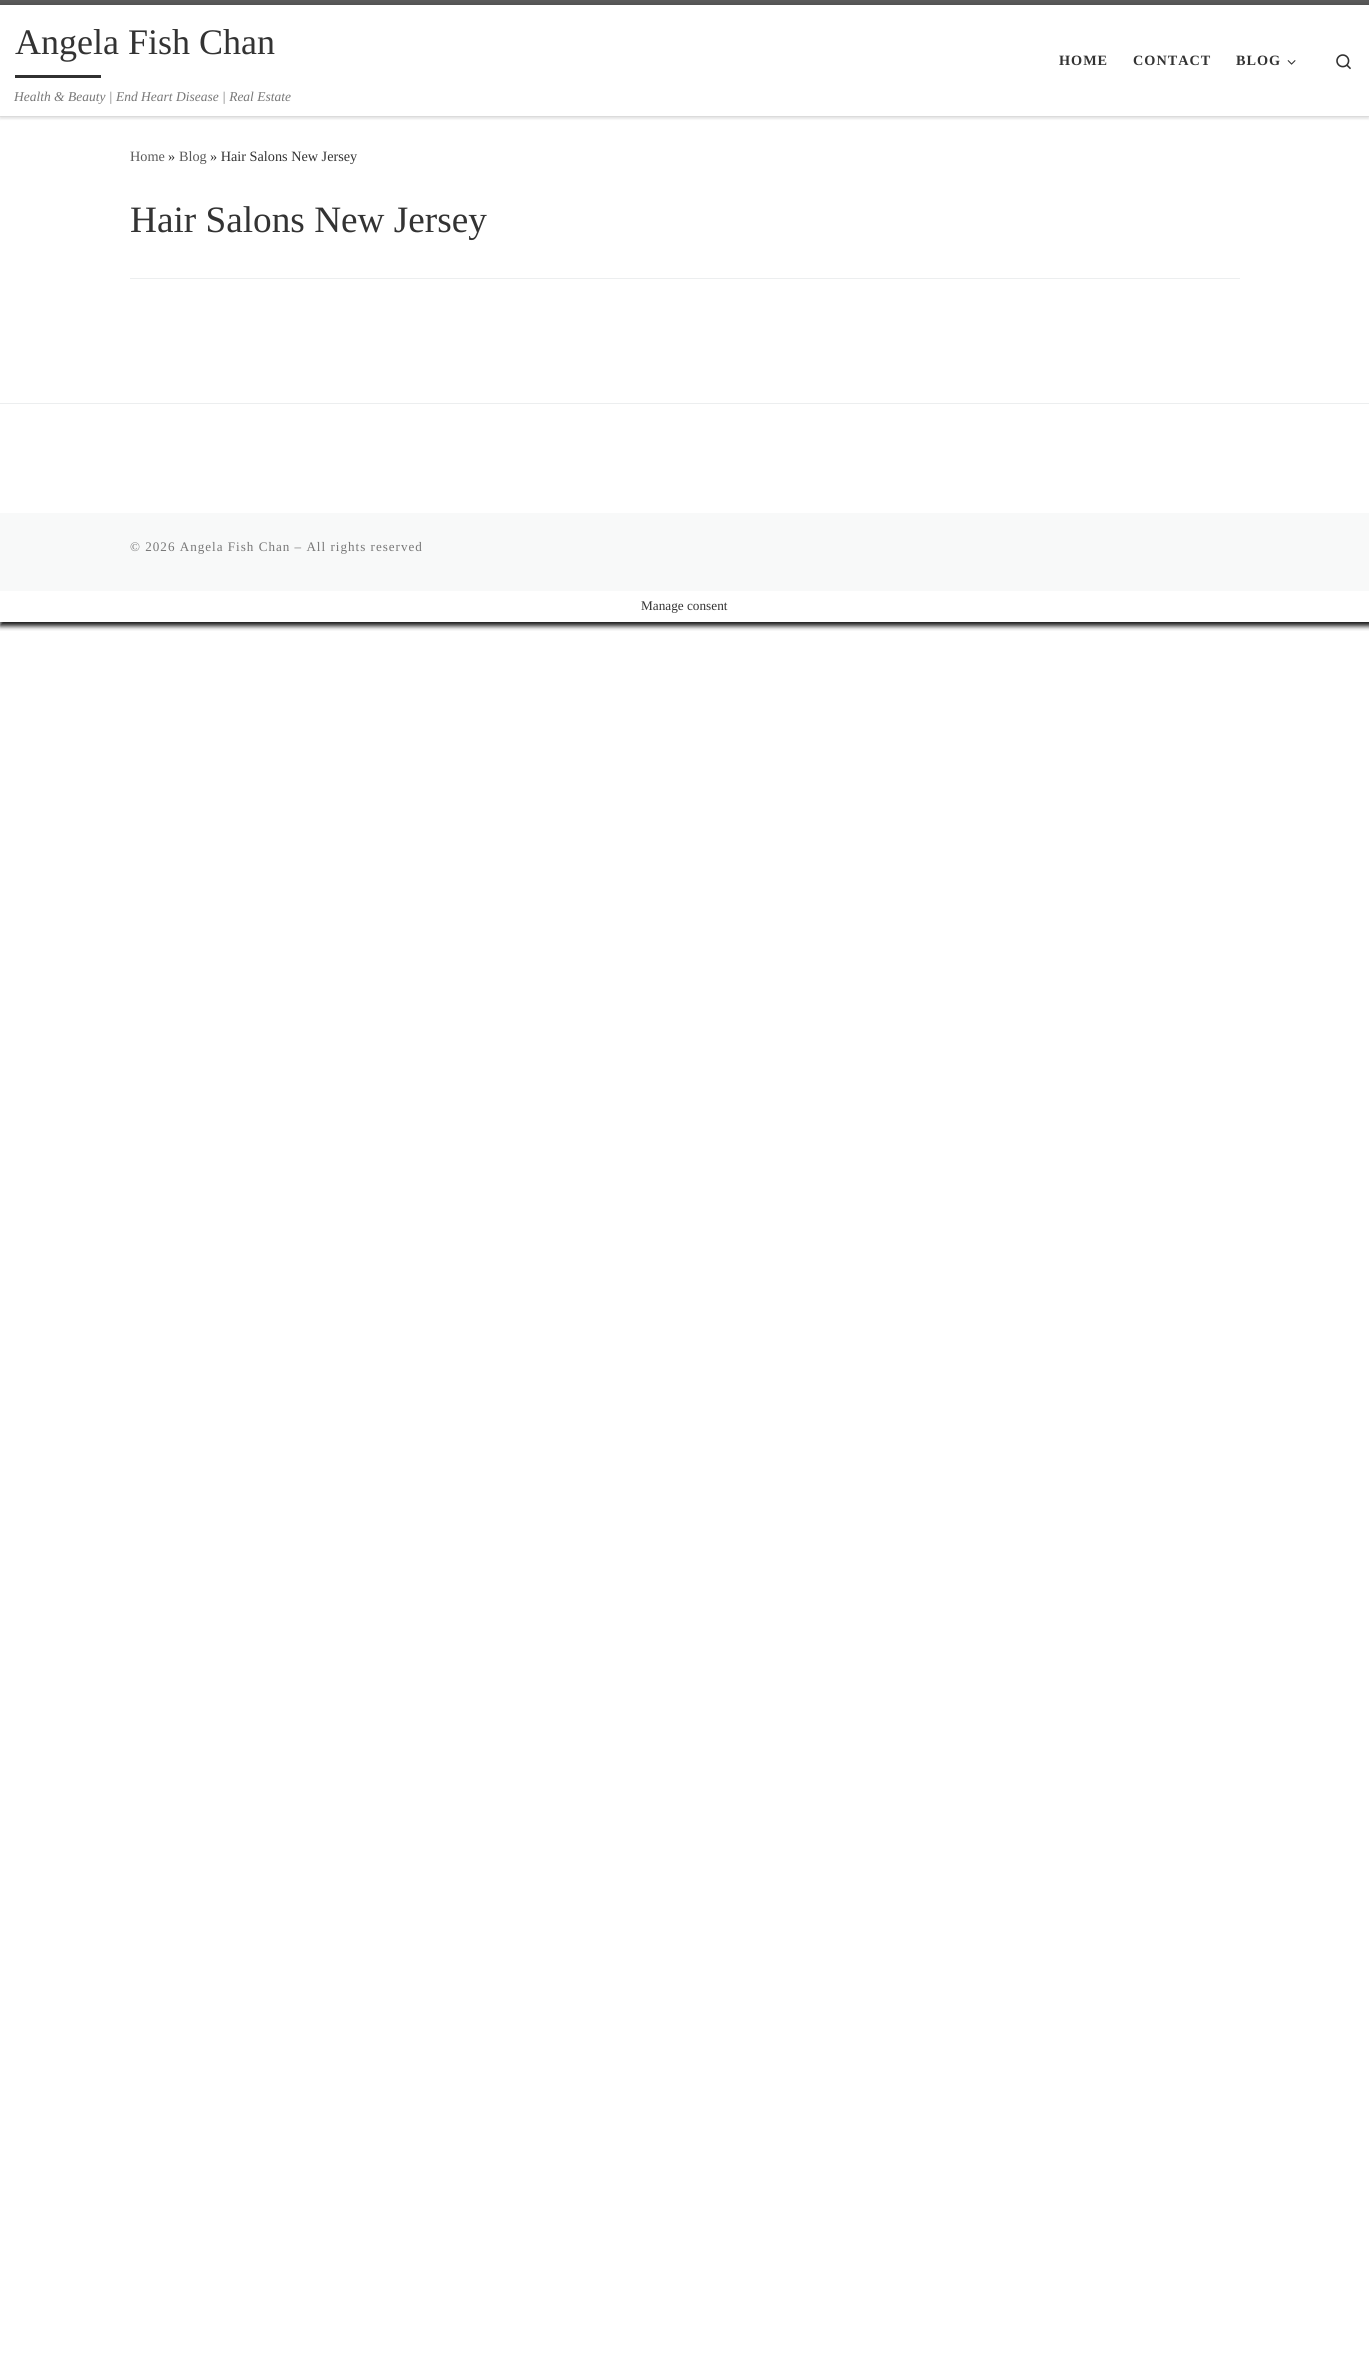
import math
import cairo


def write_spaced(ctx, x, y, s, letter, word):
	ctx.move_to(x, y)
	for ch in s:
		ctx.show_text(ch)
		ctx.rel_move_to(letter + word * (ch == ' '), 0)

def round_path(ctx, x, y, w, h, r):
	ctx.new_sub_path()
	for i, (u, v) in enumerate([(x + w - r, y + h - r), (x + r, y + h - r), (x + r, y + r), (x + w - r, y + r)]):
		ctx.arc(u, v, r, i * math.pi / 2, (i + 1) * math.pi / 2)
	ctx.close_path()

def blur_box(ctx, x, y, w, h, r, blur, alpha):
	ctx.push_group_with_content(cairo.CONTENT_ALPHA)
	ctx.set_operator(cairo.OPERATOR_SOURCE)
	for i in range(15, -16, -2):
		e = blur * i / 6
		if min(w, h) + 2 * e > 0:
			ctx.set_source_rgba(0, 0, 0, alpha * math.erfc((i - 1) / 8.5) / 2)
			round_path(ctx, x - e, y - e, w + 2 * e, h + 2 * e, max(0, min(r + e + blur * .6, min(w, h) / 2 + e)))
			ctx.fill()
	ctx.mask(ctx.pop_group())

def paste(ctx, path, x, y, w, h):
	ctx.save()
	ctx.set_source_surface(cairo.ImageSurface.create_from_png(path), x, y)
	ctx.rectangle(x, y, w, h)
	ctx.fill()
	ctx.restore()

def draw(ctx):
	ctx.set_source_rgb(1, 1, 1)
	ctx.paint()
	ctx.save()
	ctx.rectangle(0, 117, 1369, 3)
	ctx.clip()
	ctx.set_source_rgb(0.4, 0.4, 0.4)
	blur_box(ctx, 0, 2, 1369, 117, 0, 1, 0.08)
	ctx.restore()
	ctx.set_source_rgb(0.353, 0.353, 0.353)
	ctx.rectangle(0, 0, 1369, 5)
	ctx.fill()
	ctx.set_source_rgb(0.937, 0.937, 0.937)
	ctx.rectangle(0, 116, 1369, 1)
	ctx.fill()
	ctx.save()
	ctx.set_fill_rule(cairo.FILL_RULE_EVEN_ODD)
	ctx.new_path()
	ctx.move_to(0, 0)
	ctx.line_to(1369, 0)
	ctx.line_to(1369, 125)
	ctx.line_to(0, 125)
	ctx.close_path()
	ctx.move_to(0, 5)
	ctx.line_to(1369, 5)
	ctx.line_to(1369, 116)
	ctx.line_to(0, 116)
	ctx.close_path()
	ctx.clip()
	ctx.set_source_rgb(0, 0, 0)
	blur_box(ctx, 0, 5, 1369, 111, 0, 2.5, 0.2)
	ctx.restore()
	ctx.select_font_face('Liberation Serif')
	ctx.set_font_size(36)
	ctx.set_source_rgb(0.2, 0.2, 0.2)
	ctx.move_to(15, 54)
	ctx.show_text('Angela Fish Chan')
	ctx.set_source_rgb(0.192, 0.192, 0.192)
	ctx.rectangle(15, 75, 86, 3)
	ctx.fill()
	ctx.select_font_face('Liberation Serif', cairo.FONT_SLANT_ITALIC)
	ctx.set_font_size(13.5)
	ctx.set_source_rgb(0.467, 0.467, 0.467)
	ctx.move_to(14, 101)
	ctx.show_text('Health & Beauty | End Heart Disease | Real Estate')
	ctx.select_font_face('Liberation Serif', cairo.FONT_SLANT_NORMAL, cairo.FONT_WEIGHT_BOLD)
	ctx.set_font_size(14.25)
	ctx.set_source_rgb(0.2, 0.2, 0.2)
	for x, y, s in [
		(1059, 65, 'HOME'),
		(1133, 65, 'CONTACT'),
		(1236, 65, 'BLOG'),
	]:
		write_spaced(ctx, x, y, s, 1, 0)
	paste(ctx, 'media/1.png', 1287, 60, 9, 5)
	paste(ctx, 'media/2.png', 1336, 54, 15, 16)
	ctx.select_font_face('Liberation Serif')
	ctx.set_source_rgb(0.353, 0.353, 0.353)
	ctx.move_to(130, 161)
	ctx.show_text('Home')
	ctx.set_source_rgb(0.2, 0.2, 0.2)
	ctx.move_to(168, 161)
	ctx.show_text('»')
	ctx.set_source_rgb(0.353, 0.353, 0.353)
	ctx.move_to(179, 161)
	ctx.show_text('Blog')
	ctx.set_source_rgb(0.2, 0.2, 0.2)
	ctx.move_to(210, 161)
	ctx.show_text('» Hair Salons New Jersey')
	ctx.set_font_size(37.25)
	ctx.move_to(130, 232)
	ctx.show_text('Hair Salons New Jersey')
	ctx.set_source_rgb(0.925, 0.933, 0.937)
	ctx.rectangle(130, 278, 1110, 1)
	ctx.fill()
	ctx.rectangle(0, 403, 1369, 1)
	ctx.fill()
	ctx.save()
	ctx.rectangle(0, 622, 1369, 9)
	ctx.clip()
	ctx.set_source_rgb(0.086, 0.086, 0.086)
	blur_box(ctx, 0, 591, 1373, 35, 0, 2.5, 1)
	ctx.restore()
	ctx.set_source_rgb(0.969, 0.973, 0.976)
	ctx.rectangle(0, 513, 1369, 78)
	ctx.fill()
	ctx.set_font_size(13.1)
	ctx.set_source_rgb(0.467, 0.467, 0.467)
	write_spaced(ctx, 130, 551, '© 2026 Angela Fish Chan – All rights reserved', 1, 0)
	ctx.set_font_size(13.25)
	ctx.set_source_rgb(0.2, 0.2, 0.2)
	ctx.move_to(641, 610)
	ctx.show_text('Manage consent')


surface = cairo.ImageSurface(cairo.FORMAT_RGB24, 1369, 2377)
ctx = cairo.Context(surface)
options = cairo.FontOptions()
options.set_hint_metrics(cairo.HINT_METRICS_OFF)
options.set_hint_style(cairo.HINT_STYLE_NONE)
ctx.set_font_options(options)
ctx.set_miter_limit(4)
draw(ctx)
surface.write_to_png('image.png')
